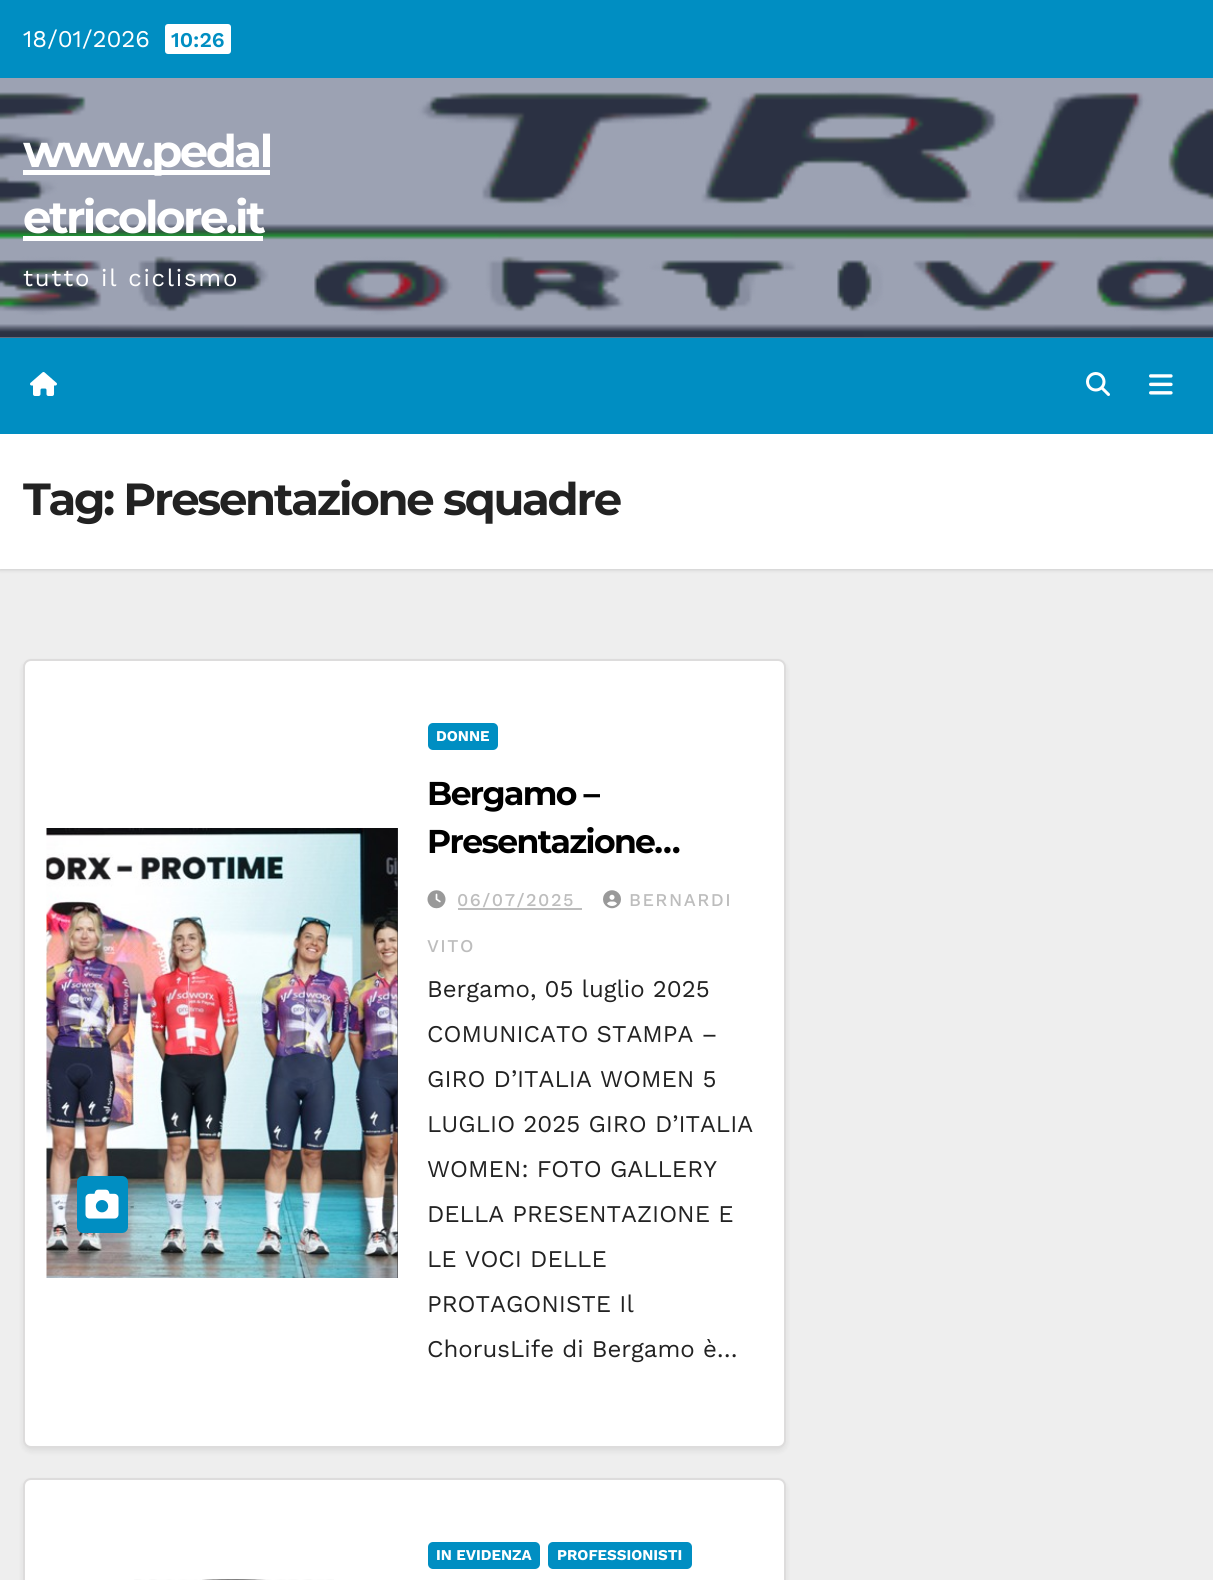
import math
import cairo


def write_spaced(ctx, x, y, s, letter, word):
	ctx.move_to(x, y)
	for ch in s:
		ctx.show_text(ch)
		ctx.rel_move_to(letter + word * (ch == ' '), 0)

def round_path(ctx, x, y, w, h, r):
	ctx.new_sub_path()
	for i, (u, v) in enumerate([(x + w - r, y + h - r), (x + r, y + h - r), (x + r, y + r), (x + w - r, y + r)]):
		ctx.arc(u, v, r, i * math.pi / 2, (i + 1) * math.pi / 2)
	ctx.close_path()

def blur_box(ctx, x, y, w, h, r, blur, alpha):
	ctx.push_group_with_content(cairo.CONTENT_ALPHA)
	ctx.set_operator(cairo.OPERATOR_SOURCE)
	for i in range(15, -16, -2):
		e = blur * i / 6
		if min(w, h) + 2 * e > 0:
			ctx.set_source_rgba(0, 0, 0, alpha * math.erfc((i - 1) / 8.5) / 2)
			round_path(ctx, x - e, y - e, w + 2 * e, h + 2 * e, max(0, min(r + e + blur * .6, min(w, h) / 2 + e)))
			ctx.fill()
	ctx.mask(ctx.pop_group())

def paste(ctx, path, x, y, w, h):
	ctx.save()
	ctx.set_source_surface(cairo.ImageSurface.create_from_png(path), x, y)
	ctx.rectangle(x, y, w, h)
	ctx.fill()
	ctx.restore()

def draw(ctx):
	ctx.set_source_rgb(0.933, 0.933, 0.933)
	ctx.paint()
	ctx.set_source_rgb(0.612, 0.635, 0.702)
	ctx.rectangle(0, 78, 1213, 260)
	ctx.fill()
	ctx.set_source_rgb(0, 0.557, 0.761)
	ctx.rectangle(0, 0, 1213, 78)
	ctx.fill()
	ctx.select_font_face('Work Sans')
	ctx.set_font_size(24)
	ctx.set_source_rgb(1, 1, 1)
	ctx.move_to(23, 47)
	ctx.show_text('18/01/2026')
	round_path(ctx, 165, 24, 66, 30, 3)
	ctx.fill()
	ctx.select_font_face('Work Sans SemiBold')
	ctx.set_font_size(21)
	ctx.set_source_rgb(0, 0.557, 0.761)
	ctx.move_to(171, 47)
	ctx.show_text('10:26')
	paste(ctx, 'media/1.png', 0, 90, 1213, 248)
	ctx.set_source_rgb(1, 1, 1)
	ctx.rectangle(23, 170, 247, 5)
	ctx.fill()
	ctx.select_font_face('Montserrat', cairo.FONT_SLANT_NORMAL, cairo.FONT_WEIGHT_BOLD)
	ctx.set_font_size(45)
	write_spaced(ctx, 23, 167, 'www.pedal', -2.5, 0)
	write_spaced(ctx, 23, 233, 'etricolore.it', -2.5, 0)
	ctx.rectangle(23, 236, 240, 5)
	ctx.fill()
	ctx.select_font_face('Work Sans')
	ctx.set_font_size(24)
	write_spaced(ctx, 23, 286, 'tutto il ciclismo', 1.75, 0)
	ctx.set_source_rgb(0, 0, 0)
	blur_box(ctx, 0, 435, 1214, 135, 0, 2, 0.15)
	ctx.set_source_rgb(0, 0.557, 0.761)
	ctx.rectangle(0, 338, 1213, 96)
	ctx.fill()
	paste(ctx, 'media/2.png', 30, 372, 27, 24)
	paste(ctx, 'media/3.png', 1086, 372, 24, 24)
	paste(ctx, 'media/4.png', 1149, 374, 24, 21)
	ctx.set_source_rgb(1, 1, 1)
	ctx.rectangle(0, 434, 1213, 135)
	ctx.fill()
	ctx.select_font_face('Montserrat', cairo.FONT_SLANT_NORMAL, cairo.FONT_WEIGHT_BOLD)
	ctx.set_font_size(45)
	ctx.set_source_rgb(0.133, 0.133, 0.133)
	write_spaced(ctx, 23, 515, 'Tag: Presentazione squadre', -2.25, 0)
	ctx.set_source_rgb(0, 0, 0)
	blur_box(ctx, 23, 662, 763, 789, 8, 3, 0.08)
	ctx.set_source_rgb(1, 1, 1)
	round_path(ctx, 24, 660, 761, 787, 7)
	ctx.fill_preserve()
	ctx.set_source_rgb(0.867, 0.863, 0.863)
	ctx.stroke()
	ctx.set_source_rgb(0.2, 0.2, 0.2)
	ctx.rectangle(397, 828, 1, 450)
	ctx.fill()
	paste(ctx, 'media/5.png', 46, 828, 352, 450)
	ctx.set_source_rgb(0, 0.557, 0.761)
	round_path(ctx, 77, 1176, 51, 57, 6)
	ctx.fill()
	paste(ctx, 'media/6.png', 85, 1189, 34, 30)
	round_path(ctx, 428, 723, 70, 27, 5)
	ctx.fill()
	ctx.select_font_face('Work Sans', cairo.FONT_SLANT_NORMAL, cairo.FONT_WEIGHT_BOLD)
	ctx.set_font_size(15)
	ctx.set_source_rgb(1, 1, 1)
	ctx.move_to(436, 741)
	ctx.show_text('DONNE')
	ctx.select_font_face('Montserrat', cairo.FONT_SLANT_NORMAL, cairo.FONT_WEIGHT_BOLD)
	ctx.set_font_size(33)
	ctx.set_source_rgb(0, 0, 0)
	write_spaced(ctx, 427, 805, 'Bergamo –', -1.6, 0)
	write_spaced(ctx, 427, 853, 'Presentazione…', -1.6, 0)
	paste(ctx, 'media/7.png', 427, 890, 19, 19)
	ctx.select_font_face('Work Sans Medium')
	ctx.set_font_size(18)
	ctx.set_source_rgb(0.741, 0.741, 0.741)
	write_spaced(ctx, 457, 906, '06/07/2025', 1.5, 0)
	ctx.rectangle(458, 908, 124, 2)
	ctx.fill()
	paste(ctx, 'media/8.png', 603, 890, 18, 19)
	write_spaced(ctx, 629, 906, 'BERNARDI', 1.5, 0)
	write_spaced(ctx, 427, 952, 'VITO', 1.5, 0)
	ctx.select_font_face('Work Sans')
	ctx.set_font_size(24)
	ctx.set_source_rgb(0.133, 0.133, 0.133)
	for x, y, s in [
		(427, 997, 'Bergamo, 05 luglio 2025'),
		(427, 1042, 'COMUNICATO STAMPA –'),
		(427, 1087, 'GIRO D’ITALIA WOMEN 5'),
		(427, 1132, 'LUGLIO 2025 GIRO D’ITALIA'),
		(427, 1177, 'WOMEN: FOTO GALLERY'),
		(427, 1222, 'DELLA PRESENTAZIONE E'),
		(427, 1267, 'LE VOCI DELLE'),
		(427, 1312, 'PROTAGONISTE Il'),
		(427, 1357, 'ChorusLife di Bergamo è…'),
	]:
		ctx.move_to(x, y)
		ctx.show_text(s)
	ctx.set_source_rgb(0, 0, 0)
	blur_box(ctx, 23, 1481, 763, 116, 8, 3, 0.08)
	ctx.set_source_rgb(1, 1, 1)
	round_path(ctx, 24, 1479, 761, 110, 7)
	ctx.fill_preserve()
	ctx.set_source_rgb(0.867, 0.863, 0.863)
	ctx.stroke()
	ctx.set_source_rgb(0, 0.557, 0.761)
	round_path(ctx, 428, 1542, 112, 27, 5)
	ctx.fill()
	ctx.select_font_face('Work Sans', cairo.FONT_SLANT_NORMAL, cairo.FONT_WEIGHT_BOLD)
	ctx.set_font_size(15)
	ctx.set_source_rgb(1, 1, 1)
	ctx.move_to(436, 1560)
	ctx.show_text('IN EVIDENZA')
	ctx.set_source_rgb(0, 0.557, 0.761)
	round_path(ctx, 548, 1542, 144, 27, 5)
	ctx.fill()
	ctx.set_source_rgb(1, 1, 1)
	ctx.move_to(557, 1560)
	ctx.show_text('PROFESSIONISTI')
	paste(ctx, 'media/9.png', 134, 1579, 200, 1)


surface = cairo.ImageSurface(cairo.FORMAT_RGB24, 1213, 1580)
ctx = cairo.Context(surface)
options = cairo.FontOptions()
options.set_hint_metrics(cairo.HINT_METRICS_OFF)
options.set_hint_style(cairo.HINT_STYLE_NONE)
ctx.set_font_options(options)
ctx.set_miter_limit(4)
draw(ctx)
surface.write_to_png('image.png')
